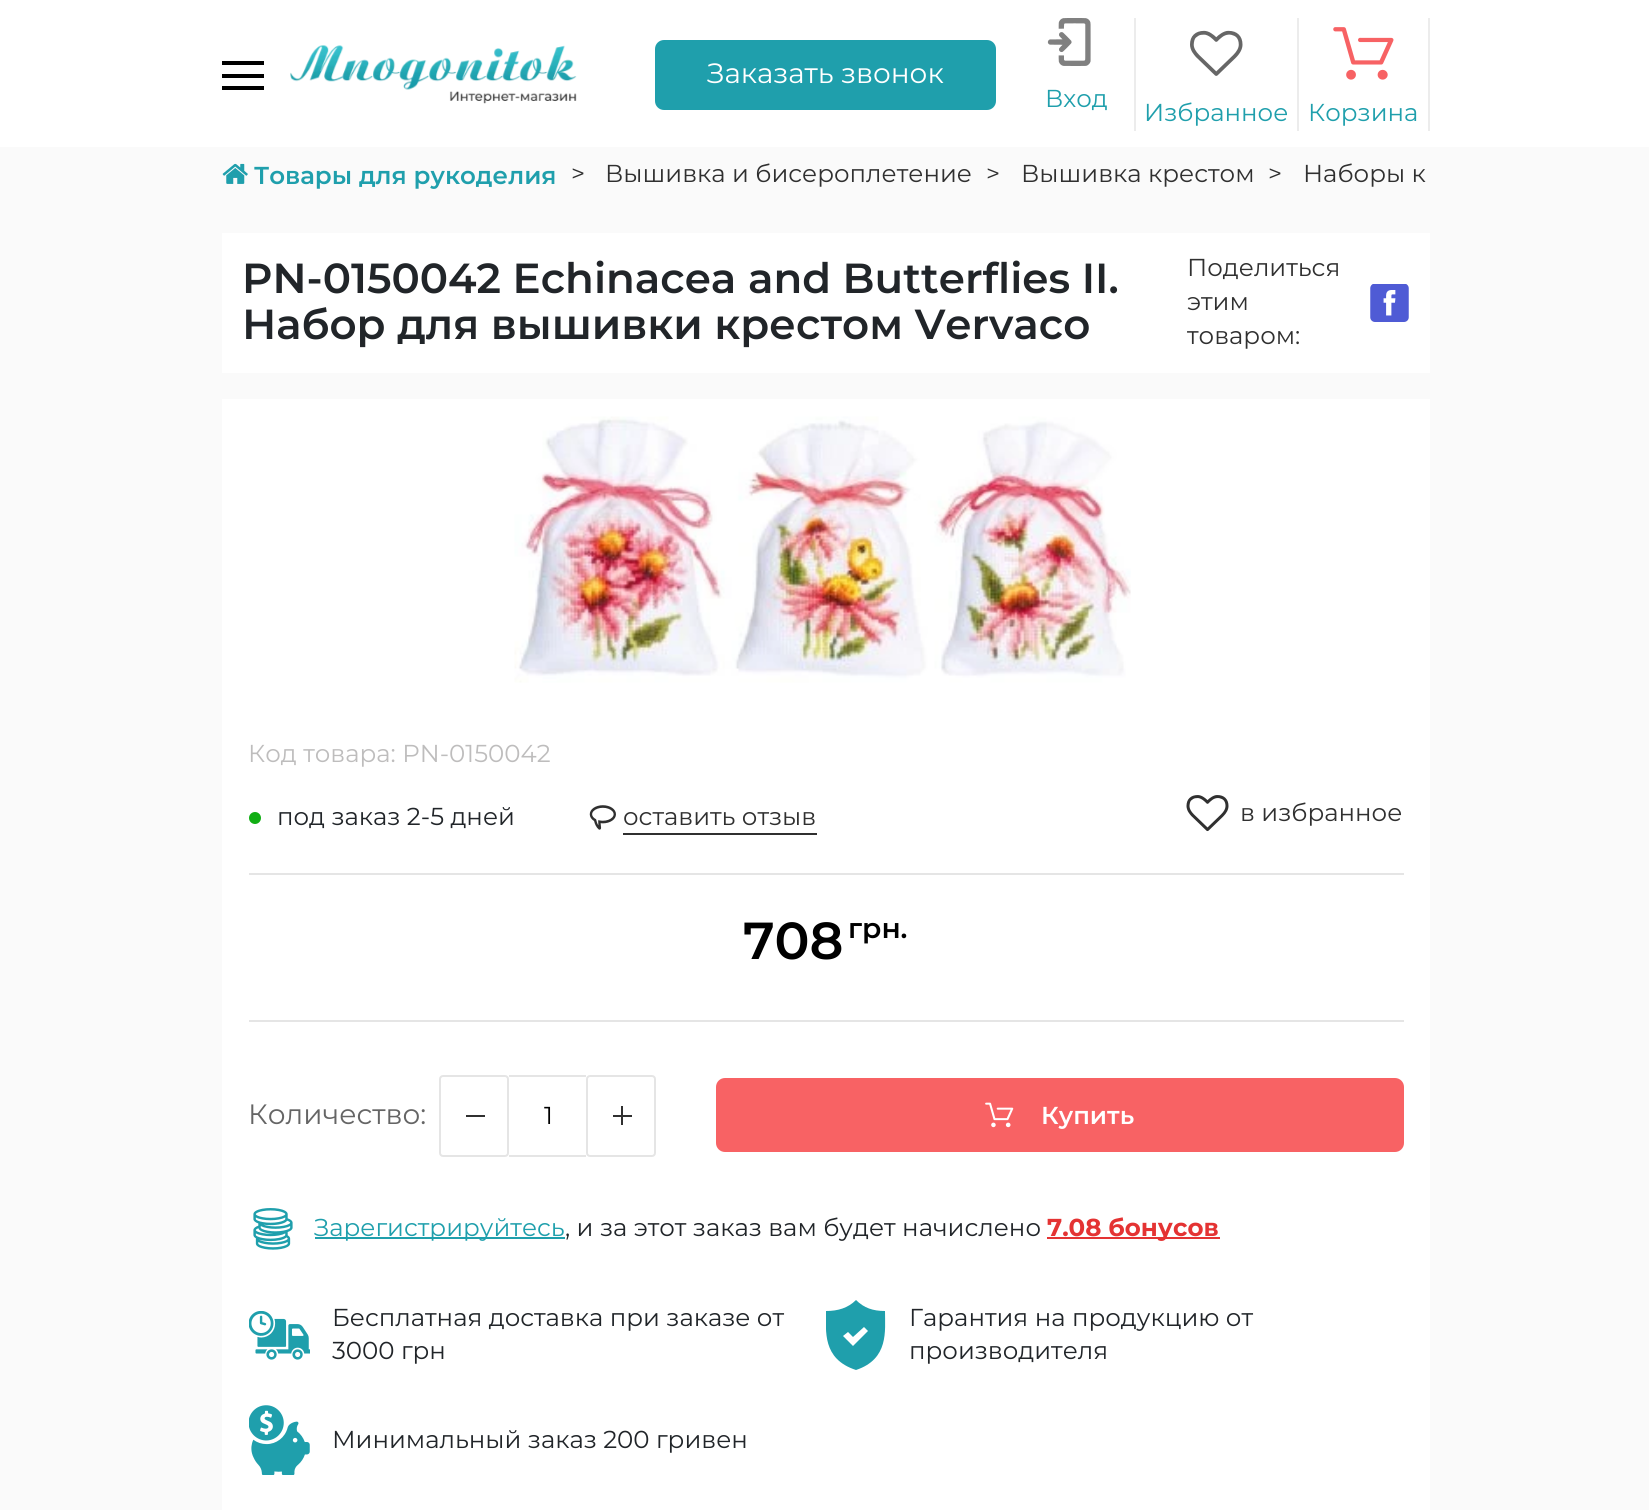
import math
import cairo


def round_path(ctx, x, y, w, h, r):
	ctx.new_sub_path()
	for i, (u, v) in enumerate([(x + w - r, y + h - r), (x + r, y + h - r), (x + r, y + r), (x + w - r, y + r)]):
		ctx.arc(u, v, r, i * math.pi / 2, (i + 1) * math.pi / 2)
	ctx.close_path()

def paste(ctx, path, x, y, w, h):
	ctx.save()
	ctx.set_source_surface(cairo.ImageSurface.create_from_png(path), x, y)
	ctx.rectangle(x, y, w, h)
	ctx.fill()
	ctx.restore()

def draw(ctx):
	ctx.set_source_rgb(0.98, 0.98, 0.98)
	ctx.paint()
	ctx.set_source_rgb(1, 1, 1)
	ctx.rectangle(0, 0, 1649, 147)
	ctx.fill()
	ctx.set_source_rgb(0, 0, 0)
	ctx.rectangle(222, 61, 42, 4)
	ctx.rectangle(222, 74, 42, 4)
	ctx.rectangle(222, 86, 42, 4)
	ctx.fill()
	paste(ctx, 'media/1.png', 290, 45, 287, 59)
	ctx.set_source_rgb(0.122, 0.624, 0.675)
	round_path(ctx, 656, 41, 339, 68, 8)
	ctx.fill_preserve()
	ctx.stroke()
	ctx.select_font_face('Montserrat')
	ctx.set_font_size(28)
	ctx.set_source_rgb(1, 1, 1)
	ctx.move_to(707, 83)
	ctx.show_text('Заказать звонок')
	paste(ctx, 'media/2.png', 1047, 18, 44, 48)
	ctx.set_font_size(24.5)
	ctx.set_source_rgb(0.122, 0.624, 0.675)
	ctx.move_to(1045, 107)
	ctx.show_text('Вход')
	ctx.set_source_rgb(0.925, 0.925, 0.925)
	ctx.rectangle(1297, 18, 2, 113)
	ctx.fill()
	ctx.rectangle(1134, 18, 2, 113)
	ctx.fill()
	paste(ctx, 'media/3.png', 1190, 30, 53, 46)
	ctx.set_source_rgb(0.122, 0.624, 0.675)
	ctx.move_to(1144, 121)
	ctx.show_text('Избранное')
	ctx.set_source_rgb(0.925, 0.925, 0.925)
	ctx.rectangle(1428, 18, 2, 113)
	ctx.fill()
	paste(ctx, 'media/4.png', 1333, 27, 61, 53)
	ctx.set_source_rgb(0.122, 0.624, 0.675)
	ctx.move_to(1308, 121)
	ctx.show_text('Корзина')
	paste(ctx, 'media/5.png', 222, 163, 26, 21)
	ctx.select_font_face('Montserrat SemiBold')
	ctx.move_to(254, 184)
	ctx.show_text('Товары для рукоделия')
	ctx.select_font_face('Montserrat')
	ctx.set_source_rgb(0.188, 0.188, 0.188)
	for x, y, s in [
		(571, 182, '>'),
		(605, 182, 'Вышивка и бисероплетение'),
		(986, 182, '>'),
		(1021, 182, 'Вышивка крестом'),
		(1268, 182, '>'),
		(1303, 182, 'Наборы к'),
	]:
		ctx.move_to(x, y)
		ctx.show_text(s)
	ctx.set_source_rgb(1, 1, 1)
	ctx.rectangle(222, 233, 1208, 140)
	ctx.fill()
	ctx.select_font_face('Montserrat SemiBold')
	ctx.set_font_size(42)
	ctx.set_source_rgb(0.129, 0.145, 0.161)
	ctx.move_to(242, 293)
	ctx.show_text('PN-0150042 Echinacea and Butterflies II.')
	ctx.move_to(242, 339)
	ctx.show_text('Набор для вышивки крестом Vervaco')
	ctx.select_font_face('Montserrat')
	ctx.set_font_size(24.5)
	ctx.set_source_rgb(0.188, 0.188, 0.188)
	for x, y, s in [
		(1187, 276, 'Поделиться'),
		(1187, 310, 'этим'),
		(1187, 344, 'товаром:'),
	]:
		ctx.move_to(x, y)
		ctx.show_text(s)
	paste(ctx, 'media/6.png', 1370, 284, 39, 38)
	ctx.set_source_rgb(1, 1, 1)
	ctx.rectangle(222, 399, 1208, 1111)
	ctx.fill()
	paste(ctx, 'media/7.png', 514, 416, 617, 267)
	ctx.set_source_rgb(0.745, 0.741, 0.741)
	ctx.move_to(248, 762)
	ctx.show_text('Код товара: PN-0150042')
	ctx.set_source_rgb(0.898, 0.898, 0.898)
	ctx.rectangle(249, 873, 1155, 2)
	ctx.fill()
	ctx.set_source_rgb(0.067, 0.682, 0.082)
	ctx.arc(255, 818, 6, 0, 2 * math.pi)
	ctx.fill()
	ctx.set_source_rgb(0.129, 0.145, 0.161)
	ctx.move_to(277, 825)
	ctx.show_text('под заказ 2-5 дней')
	paste(ctx, 'media/8.png', 589, 805, 27, 25)
	ctx.set_source_rgb(0.188, 0.188, 0.188)
	ctx.move_to(623, 825)
	ctx.show_text('оставить отзыв')
	ctx.rectangle(623, 833, 194, 2)
	ctx.fill()
	paste(ctx, 'media/9.png', 1186, 795, 43, 37)
	ctx.move_to(1240, 821)
	ctx.show_text('в избранное')
	ctx.set_source_rgb(0.898, 0.898, 0.898)
	ctx.rectangle(249, 1020, 1155, 2)
	ctx.fill()
	ctx.select_font_face('Montserrat SemiBold')
	ctx.set_font_size(52)
	ctx.set_source_rgb(0, 0, 0)
	ctx.move_to(743, 959)
	ctx.show_text('708')
	ctx.set_font_size(28)
	ctx.move_to(848, 938)
	ctx.show_text('грн.')
	ctx.select_font_face('Montserrat')
	ctx.set_source_rgb(0.396, 0.396, 0.396)
	ctx.move_to(248, 1124)
	ctx.show_text('Количество:')
	round_path(ctx, 440, 1076, 68, 80, 3)
	ctx.set_source_rgb(0.898, 0.898, 0.898)
	ctx.stroke()
	ctx.set_source_rgb(0.188, 0.188, 0.188)
	ctx.rectangle(466, 1115, 19, 2)
	ctx.fill()
	ctx.set_source_rgb(0.898, 0.898, 0.898)
	ctx.rectangle(509, 1075, 77, 2)
	ctx.rectangle(509, 1155, 77, 2)
	ctx.fill()
	ctx.set_font_size(24.5)
	ctx.set_source_rgb(0, 0, 0)
	ctx.move_to(544, 1124)
	ctx.show_text('1')
	round_path(ctx, 587, 1076, 68, 80, 3)
	ctx.set_source_rgb(0.898, 0.898, 0.898)
	ctx.stroke()
	ctx.set_source_rgb(0.188, 0.188, 0.188)
	ctx.rectangle(613, 1115, 19, 2)
	ctx.fill()
	ctx.rectangle(621, 1106, 2, 19)
	ctx.fill()
	ctx.set_source_rgb(0.969, 0.384, 0.392)
	round_path(ctx, 717, 1079, 686, 72, 8)
	ctx.fill_preserve()
	ctx.stroke()
	paste(ctx, 'media/10.png', 985, 1102, 29, 26)
	ctx.select_font_face('Montserrat SemiBold')
	ctx.set_source_rgb(1, 1, 1)
	ctx.move_to(1041, 1124)
	ctx.show_text('Купить')
	paste(ctx, 'media/11.png', 253, 1208, 40, 42)
	ctx.set_source_rgb(0.122, 0.624, 0.675)
	ctx.rectangle(315, 1237, 250, 2)
	ctx.fill()
	ctx.select_font_face('Montserrat')
	ctx.move_to(314, 1236)
	ctx.show_text('Зарегистрируйтесь')
	ctx.set_source_rgb(0.129, 0.145, 0.161)
	ctx.move_to(565, 1236)
	ctx.show_text(', и за этот заказ вам будет начислено')
	ctx.set_source_rgb(0.894, 0.2, 0.2)
	ctx.rectangle(1047, 1237, 173, 2)
	ctx.fill()
	ctx.select_font_face('Montserrat', cairo.FONT_SLANT_NORMAL, cairo.FONT_WEIGHT_BOLD)
	ctx.move_to(1047, 1236)
	ctx.show_text('7.08 бонусов')
	paste(ctx, 'media/12.png', 249, 1311, 61, 49)
	ctx.select_font_face('Montserrat')
	ctx.set_source_rgb(0.129, 0.145, 0.161)
	ctx.move_to(332, 1326)
	ctx.show_text('Бесплатная доставка при заказе от')
	ctx.move_to(332, 1359)
	ctx.show_text('3000 грн')
	ctx.save()
	ctx.rectangle(826, 1300, 60, 70)
	ctx.clip()
	ctx.set_source_rgb(0.122, 0.624, 0.675)
	ctx.set_fill_rule(cairo.FILL_RULE_EVEN_ODD)
	ctx.new_path()
	ctx.move_to(885, 1311)
	ctx.curve_to(873, 1311, 864, 1308, 856, 1300)
	ctx.curve_to(848, 1308, 838, 1311, 826, 1311)
	ctx.curve_to(826, 1331, 822, 1359, 856, 1370)
	ctx.curve_to(889, 1359, 885, 1331, 885, 1311)
	ctx.close_path()
	ctx.move_to(853, 1346)
	ctx.line_to(843, 1336)
	ctx.line_to(848, 1332)
	ctx.line_to(853, 1337)
	ctx.line_to(864, 1327)
	ctx.line_to(868, 1331)
	ctx.close_path()
	ctx.fill()
	ctx.restore()
	ctx.move_to(909, 1326)
	ctx.show_text('Гарантия на продукцию от')
	ctx.move_to(909, 1359)
	ctx.show_text('производителя')
	paste(ctx, 'media/13.png', 249, 1405, 61, 70)
	ctx.move_to(332, 1448)
	ctx.show_text('Минимальный заказ 200 гривен')


surface = cairo.ImageSurface(cairo.FORMAT_RGB24, 1649, 1510)
ctx = cairo.Context(surface)
options = cairo.FontOptions()
options.set_hint_metrics(cairo.HINT_METRICS_OFF)
options.set_hint_style(cairo.HINT_STYLE_NONE)
ctx.set_font_options(options)
ctx.set_miter_limit(4)
draw(ctx)
surface.write_to_png('image.png')
